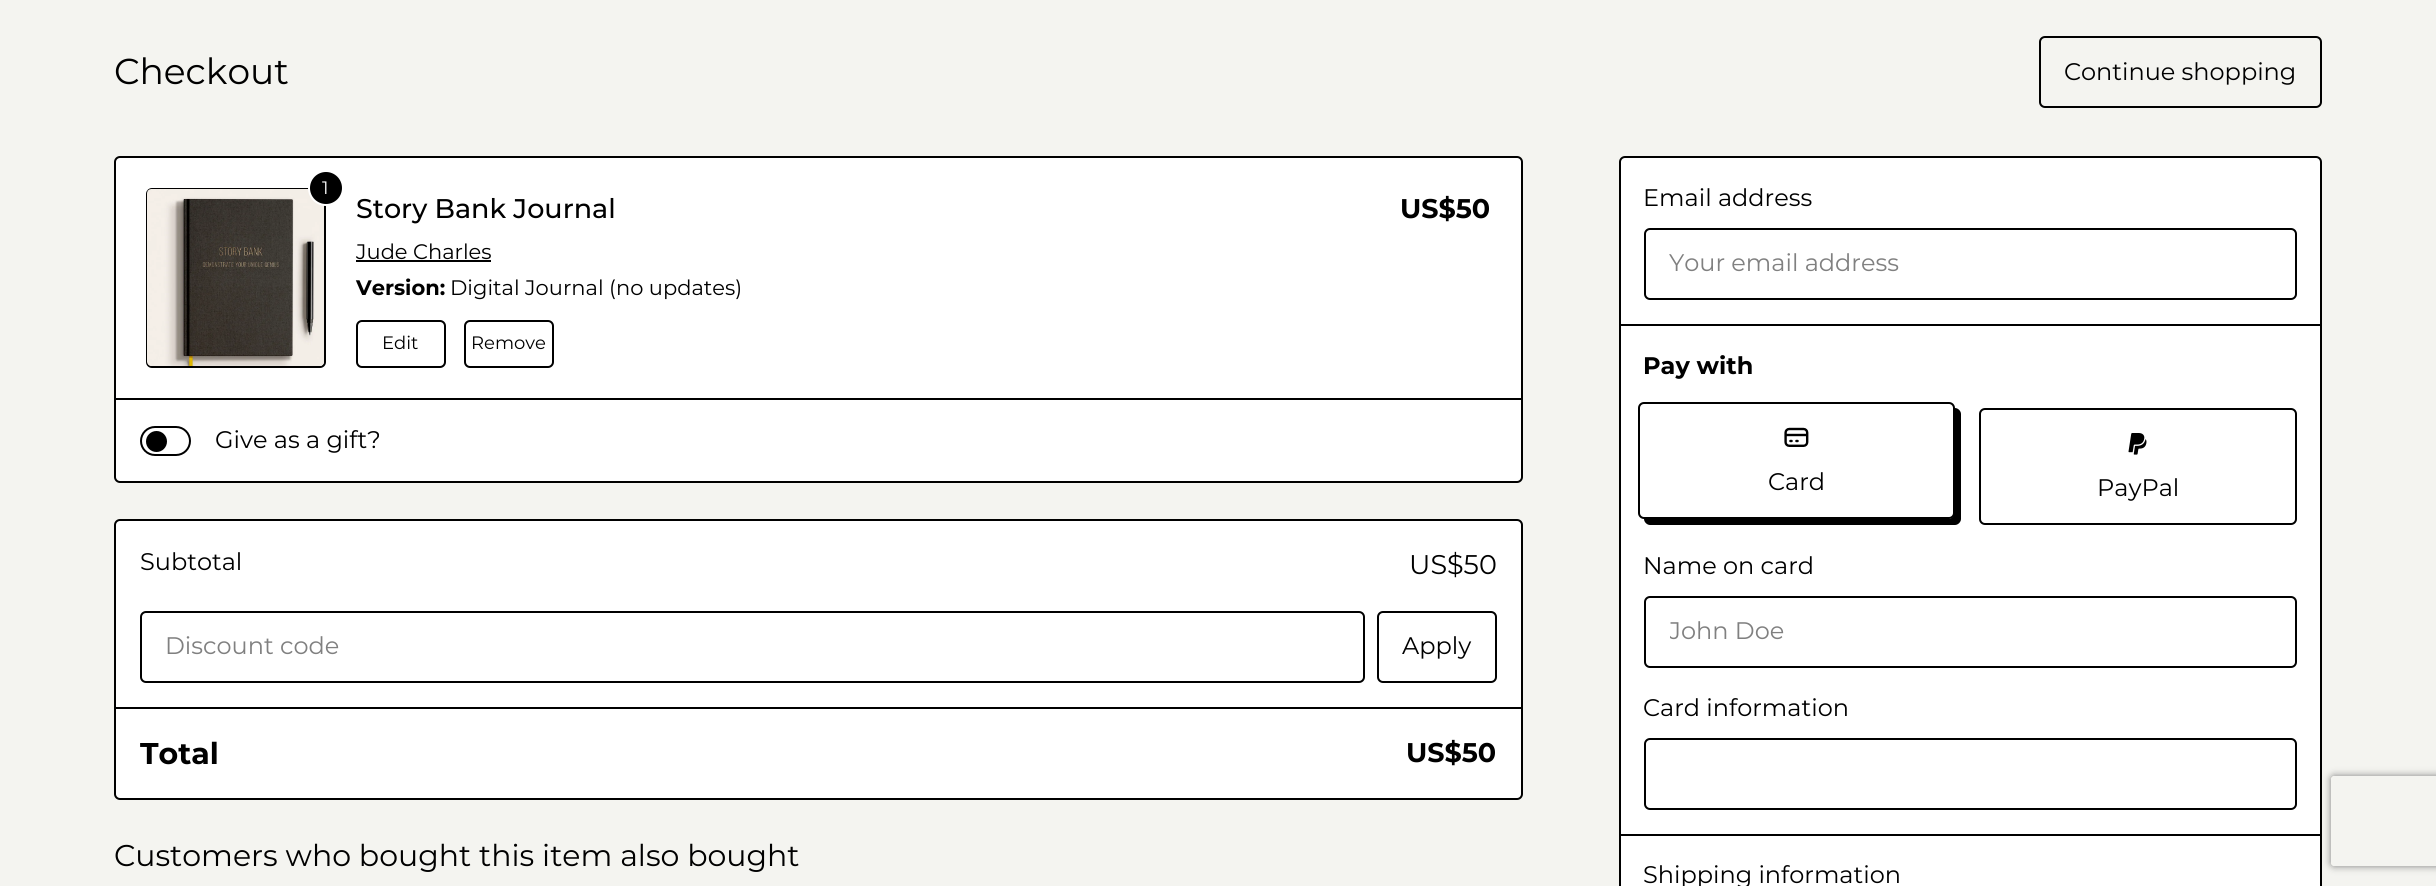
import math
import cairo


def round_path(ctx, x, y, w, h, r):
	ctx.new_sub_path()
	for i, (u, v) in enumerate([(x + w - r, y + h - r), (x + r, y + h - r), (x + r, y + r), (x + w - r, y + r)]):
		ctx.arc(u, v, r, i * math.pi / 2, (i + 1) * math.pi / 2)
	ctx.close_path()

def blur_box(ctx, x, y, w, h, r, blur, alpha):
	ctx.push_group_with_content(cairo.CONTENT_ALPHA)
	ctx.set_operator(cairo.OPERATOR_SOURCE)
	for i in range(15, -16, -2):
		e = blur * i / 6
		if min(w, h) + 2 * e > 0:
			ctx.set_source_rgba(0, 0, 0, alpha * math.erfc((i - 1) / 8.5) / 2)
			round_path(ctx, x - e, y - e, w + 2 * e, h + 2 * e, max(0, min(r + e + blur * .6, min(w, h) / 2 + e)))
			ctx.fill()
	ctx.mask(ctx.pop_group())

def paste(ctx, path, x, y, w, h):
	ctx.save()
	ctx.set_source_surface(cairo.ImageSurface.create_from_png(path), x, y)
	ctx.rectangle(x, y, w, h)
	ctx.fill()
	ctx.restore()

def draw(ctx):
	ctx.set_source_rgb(0.957, 0.957, 0.941)
	ctx.paint()
	ctx.select_font_face('Montserrat')
	ctx.set_font_size(36)
	ctx.set_source_rgb(0, 0, 0)
	ctx.move_to(114, 84)
	ctx.show_text('Checkout')
	round_path(ctx, 2040, 37, 281, 70, 5)
	ctx.stroke()
	ctx.set_font_size(24)
	ctx.move_to(2064, 80)
	ctx.show_text('Continue shopping')
	ctx.set_source_rgb(1, 1, 1)
	round_path(ctx, 115, 157, 1407, 325, 5)
	ctx.fill_preserve()
	ctx.set_source_rgb(0, 0, 0)
	ctx.stroke()
	round_path(ctx, 147, 189, 178, 178, 5)
	ctx.stroke()
	paste(ctx, 'media/1.png', 147, 189, 177, 177)
	ctx.arc(326, 188, 17, 0, 2 * math.pi)
	ctx.fill_preserve()
	ctx.set_source_rgb(1, 1, 1)
	ctx.stroke()
	ctx.set_font_size(18)
	ctx.move_to(322, 194)
	ctx.show_text('1')
	ctx.select_font_face('Montserrat Medium')
	ctx.set_font_size(27)
	ctx.set_source_rgb(0, 0, 0)
	ctx.move_to(356, 218)
	ctx.show_text('Story Bank Journal')
	ctx.select_font_face('Montserrat')
	ctx.set_font_size(21)
	ctx.move_to(356, 259)
	ctx.show_text('Jude Charles')
	ctx.rectangle(356, 260, 135, 2)
	ctx.fill()
	ctx.select_font_face('Montserrat', cairo.FONT_SLANT_NORMAL, cairo.FONT_WEIGHT_BOLD)
	ctx.move_to(356, 295)
	ctx.show_text('Version:')
	ctx.select_font_face('Montserrat')
	ctx.move_to(450, 295)
	ctx.show_text('Digital Journal (no updates)')
	round_path(ctx, 357, 321, 88, 46, 5)
	ctx.stroke()
	ctx.set_font_size(18)
	ctx.move_to(382, 349)
	ctx.show_text('Edit')
	round_path(ctx, 465, 321, 88, 46, 5)
	ctx.stroke()
	ctx.move_to(471, 349)
	ctx.show_text('Remove')
	ctx.select_font_face('Montserrat', cairo.FONT_SLANT_NORMAL, cairo.FONT_WEIGHT_BOLD)
	ctx.set_font_size(27)
	ctx.move_to(1400, 218)
	ctx.show_text('US$50')
	ctx.rectangle(116, 398, 1405, 2)
	ctx.fill()
	round_path(ctx, 141, 427, 49, 28, 14)
	ctx.stroke()
	ctx.arc(156.5, 441.5, 10.5, 0, 2 * math.pi)
	ctx.fill()
	ctx.select_font_face('Montserrat')
	ctx.set_font_size(24)
	ctx.move_to(215, 448)
	ctx.show_text('Give as a gift?')
	ctx.set_source_rgb(1, 1, 1)
	round_path(ctx, 115, 520, 1407, 279, 5)
	ctx.fill_preserve()
	ctx.set_source_rgb(0, 0, 0)
	ctx.stroke()
	ctx.move_to(140, 570)
	ctx.show_text('Subtotal')
	ctx.set_font_size(27)
	ctx.move_to(1409, 574)
	ctx.show_text('US$50')
	round_path(ctx, 141, 612, 1223, 70, 5)
	ctx.stroke()
	ctx.set_font_size(24)
	ctx.set_source_rgb(0.502, 0.502, 0.502)
	ctx.move_to(165, 654)
	ctx.show_text('Discount code')
	round_path(ctx, 1378, 612, 118, 70, 5)
	ctx.set_source_rgb(0, 0, 0)
	ctx.stroke()
	ctx.move_to(1402, 654)
	ctx.show_text('Apply')
	ctx.rectangle(116, 707, 1405, 2)
	ctx.fill()
	ctx.select_font_face('Montserrat', cairo.FONT_SLANT_NORMAL, cairo.FONT_WEIGHT_BOLD)
	ctx.set_font_size(30)
	ctx.move_to(140, 764)
	ctx.show_text('Total')
	ctx.set_font_size(27)
	ctx.move_to(1406, 762)
	ctx.show_text('US$50')
	ctx.select_font_face('Montserrat')
	ctx.set_font_size(30)
	ctx.move_to(114, 866)
	ctx.show_text('Customers who bought this item also bought')
	ctx.set_source_rgb(1, 1, 1)
	ctx.new_path()
	ctx.move_to(1625, 156)
	ctx.line_to(2316, 156)
	ctx.curve_to(2319.5, 156, 2322, 158.5, 2322, 162)
	ctx.line_to(2322, 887)
	ctx.line_to(1619, 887)
	ctx.line_to(1619, 162)
	ctx.curve_to(1619, 158.5, 1621.5, 156, 1625, 156)
	ctx.close_path()
	ctx.fill()
	round_path(ctx, 1620, 157, 701, 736, 5)
	ctx.set_source_rgb(0, 0, 0)
	ctx.stroke()
	ctx.rectangle(1620, 324, 701, 2)
	ctx.fill()
	ctx.set_font_size(24)
	ctx.move_to(1643, 206)
	ctx.show_text('Email address')
	round_path(ctx, 1645, 229, 651, 70, 5)
	ctx.stroke()
	ctx.set_source_rgb(0.502, 0.502, 0.502)
	ctx.move_to(1669, 271)
	ctx.show_text('Your email address')
	ctx.select_font_face('Montserrat', cairo.FONT_SLANT_NORMAL, cairo.FONT_WEIGHT_BOLD)
	ctx.set_source_rgb(0, 0, 0)
	ctx.move_to(1643, 374)
	ctx.show_text('Pay with')
	ctx.new_path()
	ctx.move_to(1644, 519)
	ctx.curve_to(1644, 522, 1647, 525, 1650, 525)
	ctx.line_to(1955, 525)
	ctx.curve_to(1958, 525, 1961, 522, 1961, 519)
	ctx.line_to(1961, 414)
	ctx.curve_to(1961, 411, 1958, 408, 1955, 408)
	ctx.line_to(1954, 408)
	ctx.line_to(1954, 513)
	ctx.curve_to(1954, 516, 1952, 519, 1948, 519)
	ctx.close_path()
	ctx.fill()
	ctx.set_source_rgb(1, 1, 1)
	round_path(ctx, 1639, 403, 315, 115, 5)
	ctx.fill_preserve()
	ctx.set_source_rgb(0, 0, 0)
	ctx.stroke()
	paste(ctx, 'media/2.png', 1784, 427, 25, 20)
	ctx.select_font_face('Montserrat')
	ctx.move_to(1768, 490)
	ctx.show_text('Card')
	round_path(ctx, 1980, 409, 316, 115, 5)
	ctx.stroke()
	paste(ctx, 'media/3.png', 2128, 433, 19, 22)
	ctx.move_to(2097, 496)
	ctx.show_text('PayPal')
	ctx.rectangle(1620, 834, 701, 2)
	ctx.fill()
	ctx.move_to(1643, 574)
	ctx.show_text('Name on card')
	round_path(ctx, 1645, 597, 651, 70, 5)
	ctx.stroke()
	ctx.save()
	ctx.rectangle(1670, 617, 601, 28)
	ctx.clip()
	ctx.set_source_rgb(0.502, 0.502, 0.502)
	ctx.move_to(1669, 639)
	ctx.show_text('John Doe')
	ctx.restore()
	ctx.move_to(1643, 716)
	ctx.show_text('Card information')
	round_path(ctx, 1645, 739, 651, 70, 5)
	ctx.stroke()
	ctx.move_to(1643, 883)
	ctx.show_text('Shipping information')
	ctx.save()
	ctx.set_fill_rule(cairo.FILL_RULE_EVEN_ODD)
	ctx.new_path()
	ctx.move_to(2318, 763)
	ctx.line_to(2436, 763)
	ctx.line_to(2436, 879)
	ctx.line_to(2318, 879)
	ctx.close_path()
	ctx.move_to(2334, 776)
	ctx.line_to(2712, 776)
	ctx.curve_to(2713.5, 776, 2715, 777.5, 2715, 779)
	ctx.line_to(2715, 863)
	ctx.curve_to(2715, 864.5, 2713.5, 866, 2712, 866)
	ctx.line_to(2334, 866)
	ctx.curve_to(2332.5, 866, 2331, 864.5, 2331, 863)
	ctx.line_to(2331, 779)
	ctx.curve_to(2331, 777.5, 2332.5, 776, 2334, 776)
	ctx.close_path()
	ctx.clip()
	ctx.set_source_rgb(0.502, 0.502, 0.502)
	blur_box(ctx, 2331, 776, 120, 90, 3, 4, 1)
	ctx.restore()


surface = cairo.ImageSurface(cairo.FORMAT_RGB24, 2436, 886)
ctx = cairo.Context(surface)
options = cairo.FontOptions()
options.set_hint_metrics(cairo.HINT_METRICS_OFF)
options.set_hint_style(cairo.HINT_STYLE_NONE)
ctx.set_font_options(options)
ctx.set_miter_limit(4)
draw(ctx)
surface.write_to_png('image.png')
